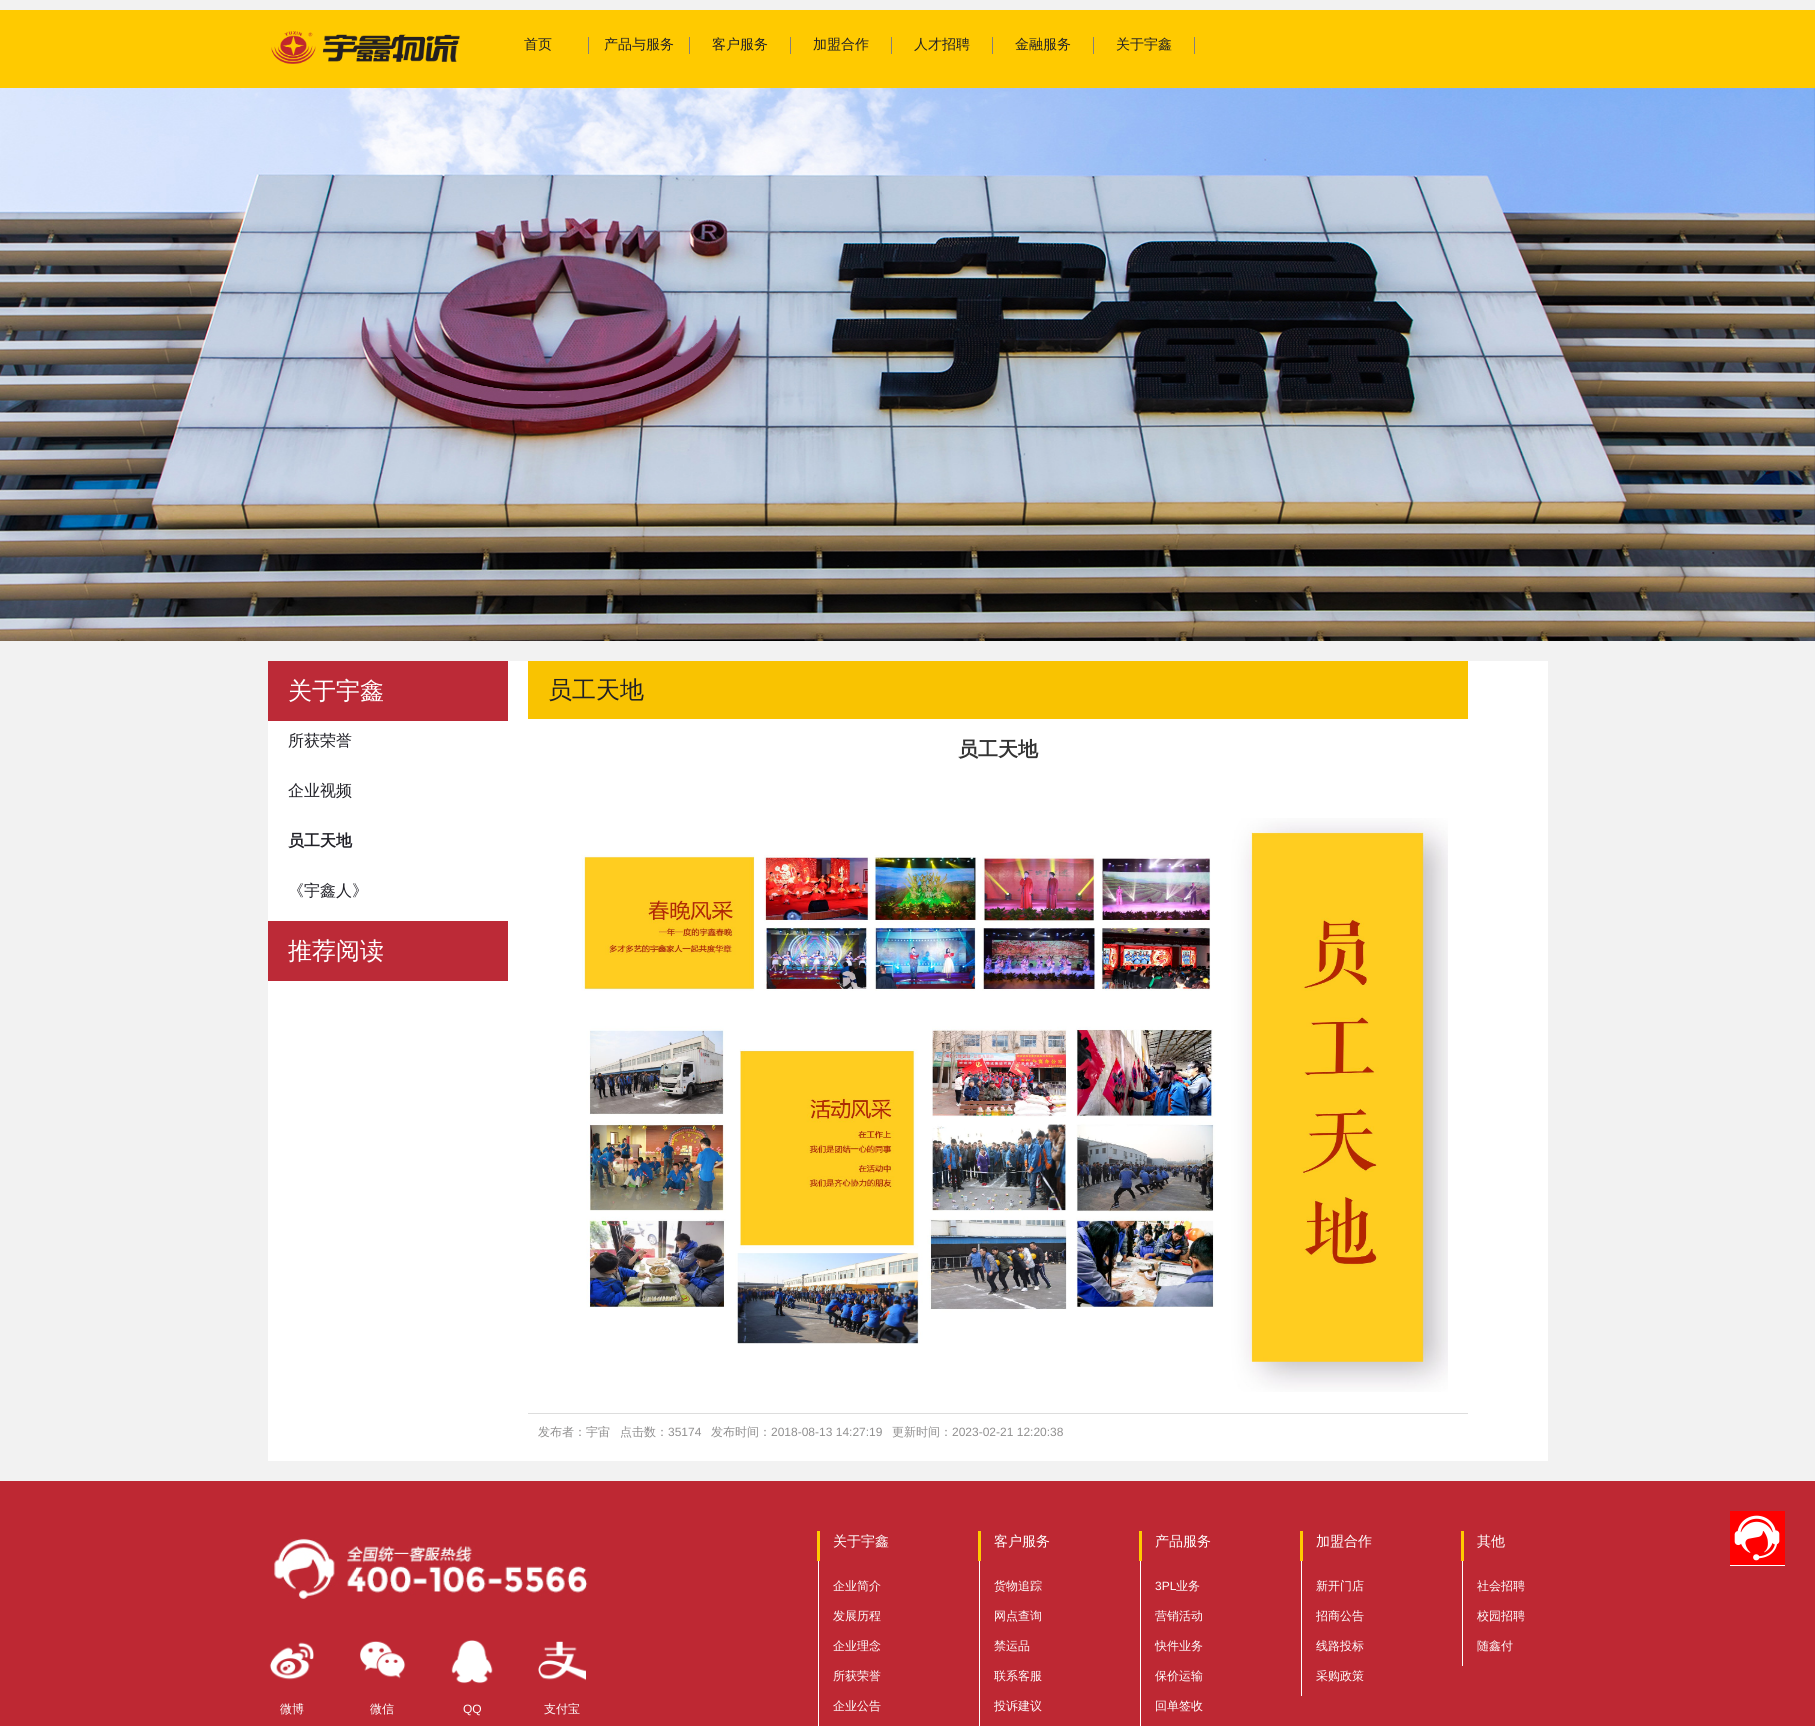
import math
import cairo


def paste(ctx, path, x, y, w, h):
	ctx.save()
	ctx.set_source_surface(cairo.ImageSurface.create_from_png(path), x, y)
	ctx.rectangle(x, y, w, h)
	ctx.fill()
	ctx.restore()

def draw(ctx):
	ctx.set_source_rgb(0.949, 0.949, 0.949)
	ctx.paint()
	ctx.set_source_rgb(1, 0.792, 0)
	ctx.rectangle(0, 10, 1815, 78)
	ctx.fill()
	paste(ctx, 'media/1.png', 271, 31, 189, 33)
	ctx.select_font_face('WenQuanYi Zen Hei Medium')
	ctx.set_font_size(14)
	ctx.set_source_rgb(0.125, 0.125, 0.153)
	ctx.move_to(524, 49)
	ctx.show_text('首页')
	ctx.set_source_rgb(0.518, 0.498, 0.498)
	ctx.rectangle(588, 37, 1, 17)
	ctx.fill()
	ctx.set_source_rgb(0.125, 0.125, 0.153)
	ctx.move_to(604, 49)
	ctx.show_text('产品与服务')
	ctx.set_source_rgb(0.518, 0.498, 0.498)
	ctx.rectangle(689, 37, 1, 17)
	ctx.fill()
	ctx.set_source_rgb(0.125, 0.125, 0.153)
	ctx.move_to(712, 49)
	ctx.show_text('客户服务')
	ctx.set_source_rgb(0.518, 0.498, 0.498)
	ctx.rectangle(790, 37, 1, 17)
	ctx.fill()
	ctx.set_source_rgb(0.125, 0.125, 0.153)
	ctx.move_to(813, 49)
	ctx.show_text('加盟合作')
	ctx.set_source_rgb(0.518, 0.498, 0.498)
	ctx.rectangle(891, 37, 1, 17)
	ctx.fill()
	ctx.set_source_rgb(0.125, 0.125, 0.153)
	ctx.move_to(914, 49)
	ctx.show_text('人才招聘')
	ctx.set_source_rgb(0.518, 0.498, 0.498)
	ctx.rectangle(992, 37, 1, 17)
	ctx.fill()
	ctx.set_source_rgb(0.125, 0.125, 0.153)
	ctx.move_to(1015, 49)
	ctx.show_text('金融服务')
	ctx.set_source_rgb(0.518, 0.498, 0.498)
	ctx.rectangle(1093, 37, 1, 17)
	ctx.fill()
	ctx.set_source_rgb(0.125, 0.125, 0.153)
	ctx.move_to(1116, 49)
	ctx.show_text('关于宇鑫')
	ctx.set_source_rgb(0.518, 0.498, 0.498)
	ctx.rectangle(1194, 37, 1, 17)
	ctx.fill()
	paste(ctx, 'media/2.png', 0, 88, 1815, 553)
	ctx.set_source_rgb(1, 1, 1)
	ctx.rectangle(268, 661, 1280, 800)
	ctx.fill()
	ctx.set_source_rgb(0.737, 0.165, 0.216)
	ctx.rectangle(268, 661, 240, 60)
	ctx.fill()
	ctx.set_font_size(24)
	ctx.set_source_rgb(1, 1, 1)
	ctx.move_to(288, 699)
	ctx.show_text('关于宇鑫')
	ctx.set_font_size(16)
	ctx.set_source_rgb(0.125, 0.125, 0.153)
	ctx.move_to(288, 746)
	ctx.show_text('所获荣誉')
	ctx.move_to(288, 796)
	ctx.show_text('企业视频')
	ctx.select_font_face('WenQuanYi Zen Hei', cairo.FONT_SLANT_NORMAL, cairo.FONT_WEIGHT_BOLD)
	ctx.move_to(288, 846)
	ctx.show_text('员工天地')
	ctx.select_font_face('WenQuanYi Zen Hei Medium')
	ctx.move_to(288, 896)
	ctx.show_text('《宇鑫人》')
	ctx.set_source_rgb(0.737, 0.165, 0.216)
	ctx.rectangle(268, 921, 240, 60)
	ctx.fill()
	ctx.set_font_size(24)
	ctx.set_source_rgb(1, 1, 1)
	ctx.move_to(288, 959)
	ctx.show_text('推荐阅读')
	ctx.set_source_rgb(0.976, 0.765, 0.004)
	ctx.rectangle(528, 661, 940, 58)
	ctx.fill()
	ctx.set_source_rgb(0.125, 0.125, 0.153)
	ctx.move_to(548, 698)
	ctx.show_text('员工天地')
	ctx.select_font_face('WenQuanYi Zen Hei', cairo.FONT_SLANT_NORMAL, cairo.FONT_WEIGHT_BOLD)
	ctx.set_font_size(20)
	ctx.set_source_rgb(0.2, 0.2, 0.2)
	ctx.move_to(958, 756)
	ctx.show_text('员工天地')
	paste(ctx, 'media/3.png', 581, 818, 867, 574)
	ctx.set_source_rgb(0.867, 0.867, 0.867)
	ctx.rectangle(528, 1413, 940, 1)
	ctx.fill()
	ctx.select_font_face('WenQuanYi Zen Hei Medium')
	ctx.set_font_size(12)
	ctx.set_source_rgb(0.565, 0.561, 0.561)
	ctx.move_to(538, 1436)
	ctx.show_text('发布者：宇宙')
	ctx.move_to(620, 1436)
	ctx.show_text('点击数：')
	ctx.select_font_face('Liberation Sans')
	ctx.move_to(668, 1436)
	ctx.show_text('35174')
	ctx.select_font_face('WenQuanYi Zen Hei Medium')
	ctx.move_to(711, 1436)
	ctx.show_text('发布时间：')
	ctx.select_font_face('Liberation Sans')
	ctx.move_to(771, 1436)
	ctx.show_text('2018-08-13 14:27:19')
	ctx.select_font_face('WenQuanYi Zen Hei Medium')
	ctx.move_to(892, 1436)
	ctx.show_text('更新时间：')
	ctx.select_font_face('Liberation Sans')
	ctx.move_to(952, 1436)
	ctx.show_text('2023-02-21 12:20:38')
	ctx.set_source_rgb(0.745, 0.157, 0.2)
	ctx.rectangle(0, 1481, 1815, 245)
	ctx.fill()
	paste(ctx, 'media/4.png', 274, 1538, 314, 61)
	paste(ctx, 'media/5.png', 269, 1642, 45, 38)
	ctx.select_font_face('WenQuanYi Zen Hei Medium')
	ctx.set_source_rgb(1, 1, 1)
	ctx.move_to(280, 1713)
	ctx.show_text('微博')
	paste(ctx, 'media/6.png', 360, 1641, 46, 38)
	ctx.move_to(370, 1713)
	ctx.show_text('微信')
	paste(ctx, 'media/7.png', 451, 1640, 42, 44)
	ctx.select_font_face('Liberation Sans')
	ctx.move_to(463, 1713)
	ctx.show_text('QQ')
	paste(ctx, 'media/8.png', 538, 1641, 48, 40)
	ctx.select_font_face('WenQuanYi Zen Hei Medium')
	ctx.move_to(544, 1713)
	ctx.show_text('支付宝')
	ctx.rectangle(818, 1561, 1, 165)
	ctx.fill()
	ctx.set_source_rgb(1, 0.792, 0)
	ctx.rectangle(817, 1531, 3, 30)
	ctx.fill()
	ctx.set_font_size(14)
	ctx.set_source_rgb(1, 1, 1)
	ctx.move_to(833, 1546)
	ctx.show_text('关于宇鑫')
	ctx.set_font_size(12)
	for x, y, s in [
		(833, 1590, '企业简介'),
		(833, 1620, '发展历程'),
		(833, 1650, '企业理念'),
		(833, 1680, '所获荣誉'),
		(833, 1710, '企业公告'),
	]:
		ctx.move_to(x, y)
		ctx.show_text(s)
	ctx.rectangle(979, 1561, 1, 165)
	ctx.fill()
	ctx.set_source_rgb(1, 0.792, 0)
	ctx.rectangle(978, 1531, 3, 30)
	ctx.fill()
	ctx.set_font_size(14)
	ctx.set_source_rgb(1, 1, 1)
	ctx.move_to(994, 1546)
	ctx.show_text('客户服务')
	ctx.set_font_size(12)
	for x, y, s in [
		(994, 1590, '货物追踪'),
		(994, 1620, '网点查询'),
		(994, 1650, '禁运品'),
		(994, 1680, '联系客服'),
		(994, 1710, '投诉建议'),
	]:
		ctx.move_to(x, y)
		ctx.show_text(s)
	ctx.rectangle(1140, 1561, 1, 165)
	ctx.fill()
	ctx.set_source_rgb(1, 0.792, 0)
	ctx.rectangle(1139, 1531, 3, 30)
	ctx.fill()
	ctx.set_font_size(14)
	ctx.set_source_rgb(1, 1, 1)
	ctx.move_to(1155, 1546)
	ctx.show_text('产品服务')
	ctx.select_font_face('Liberation Sans')
	ctx.set_font_size(12)
	ctx.move_to(1155, 1590)
	ctx.show_text('3PL')
	ctx.select_font_face('WenQuanYi Zen Hei Medium')
	for x, y, s in [
		(1176, 1590, '业务'),
		(1155, 1620, '营销活动'),
		(1155, 1650, '快件业务'),
		(1155, 1680, '保价运输'),
		(1155, 1710, '回单签收'),
	]:
		ctx.move_to(x, y)
		ctx.show_text(s)
	ctx.rectangle(1301, 1561, 1, 135)
	ctx.fill()
	ctx.set_source_rgb(1, 0.792, 0)
	ctx.rectangle(1300, 1531, 3, 30)
	ctx.fill()
	ctx.set_font_size(14)
	ctx.set_source_rgb(1, 1, 1)
	ctx.move_to(1316, 1546)
	ctx.show_text('加盟合作')
	ctx.set_font_size(12)
	for x, y, s in [
		(1316, 1590, '新开门店'),
		(1316, 1620, '招商公告'),
		(1316, 1650, '线路投标'),
		(1316, 1680, '采购政策'),
	]:
		ctx.move_to(x, y)
		ctx.show_text(s)
	ctx.rectangle(1462, 1561, 1, 105)
	ctx.fill()
	ctx.set_source_rgb(1, 0.792, 0)
	ctx.rectangle(1461, 1531, 3, 30)
	ctx.fill()
	ctx.set_font_size(14)
	ctx.set_source_rgb(1, 1, 1)
	ctx.move_to(1477, 1546)
	ctx.show_text('其他')
	ctx.set_font_size(12)
	for x, y, s in [
		(1477, 1590, '社会招聘'),
		(1477, 1620, '校园招聘'),
		(1477, 1650, '随鑫付'),
	]:
		ctx.move_to(x, y)
		ctx.show_text(s)
	ctx.set_source_rgb(1, 0, 0)
	ctx.rectangle(1730, 1511, 55, 54)
	ctx.fill()
	ctx.set_source_rgb(1, 1, 1)
	ctx.rectangle(1730, 1565, 55, 1)
	ctx.fill()
	paste(ctx, 'media/9.png', 1734, 1515, 46, 46)


surface = cairo.ImageSurface(cairo.FORMAT_RGB24, 1815, 1726)
ctx = cairo.Context(surface)
options = cairo.FontOptions()
options.set_hint_metrics(cairo.HINT_METRICS_OFF)
options.set_hint_style(cairo.HINT_STYLE_NONE)
ctx.set_font_options(options)
ctx.set_miter_limit(4)
draw(ctx)
surface.write_to_png('image.png')
